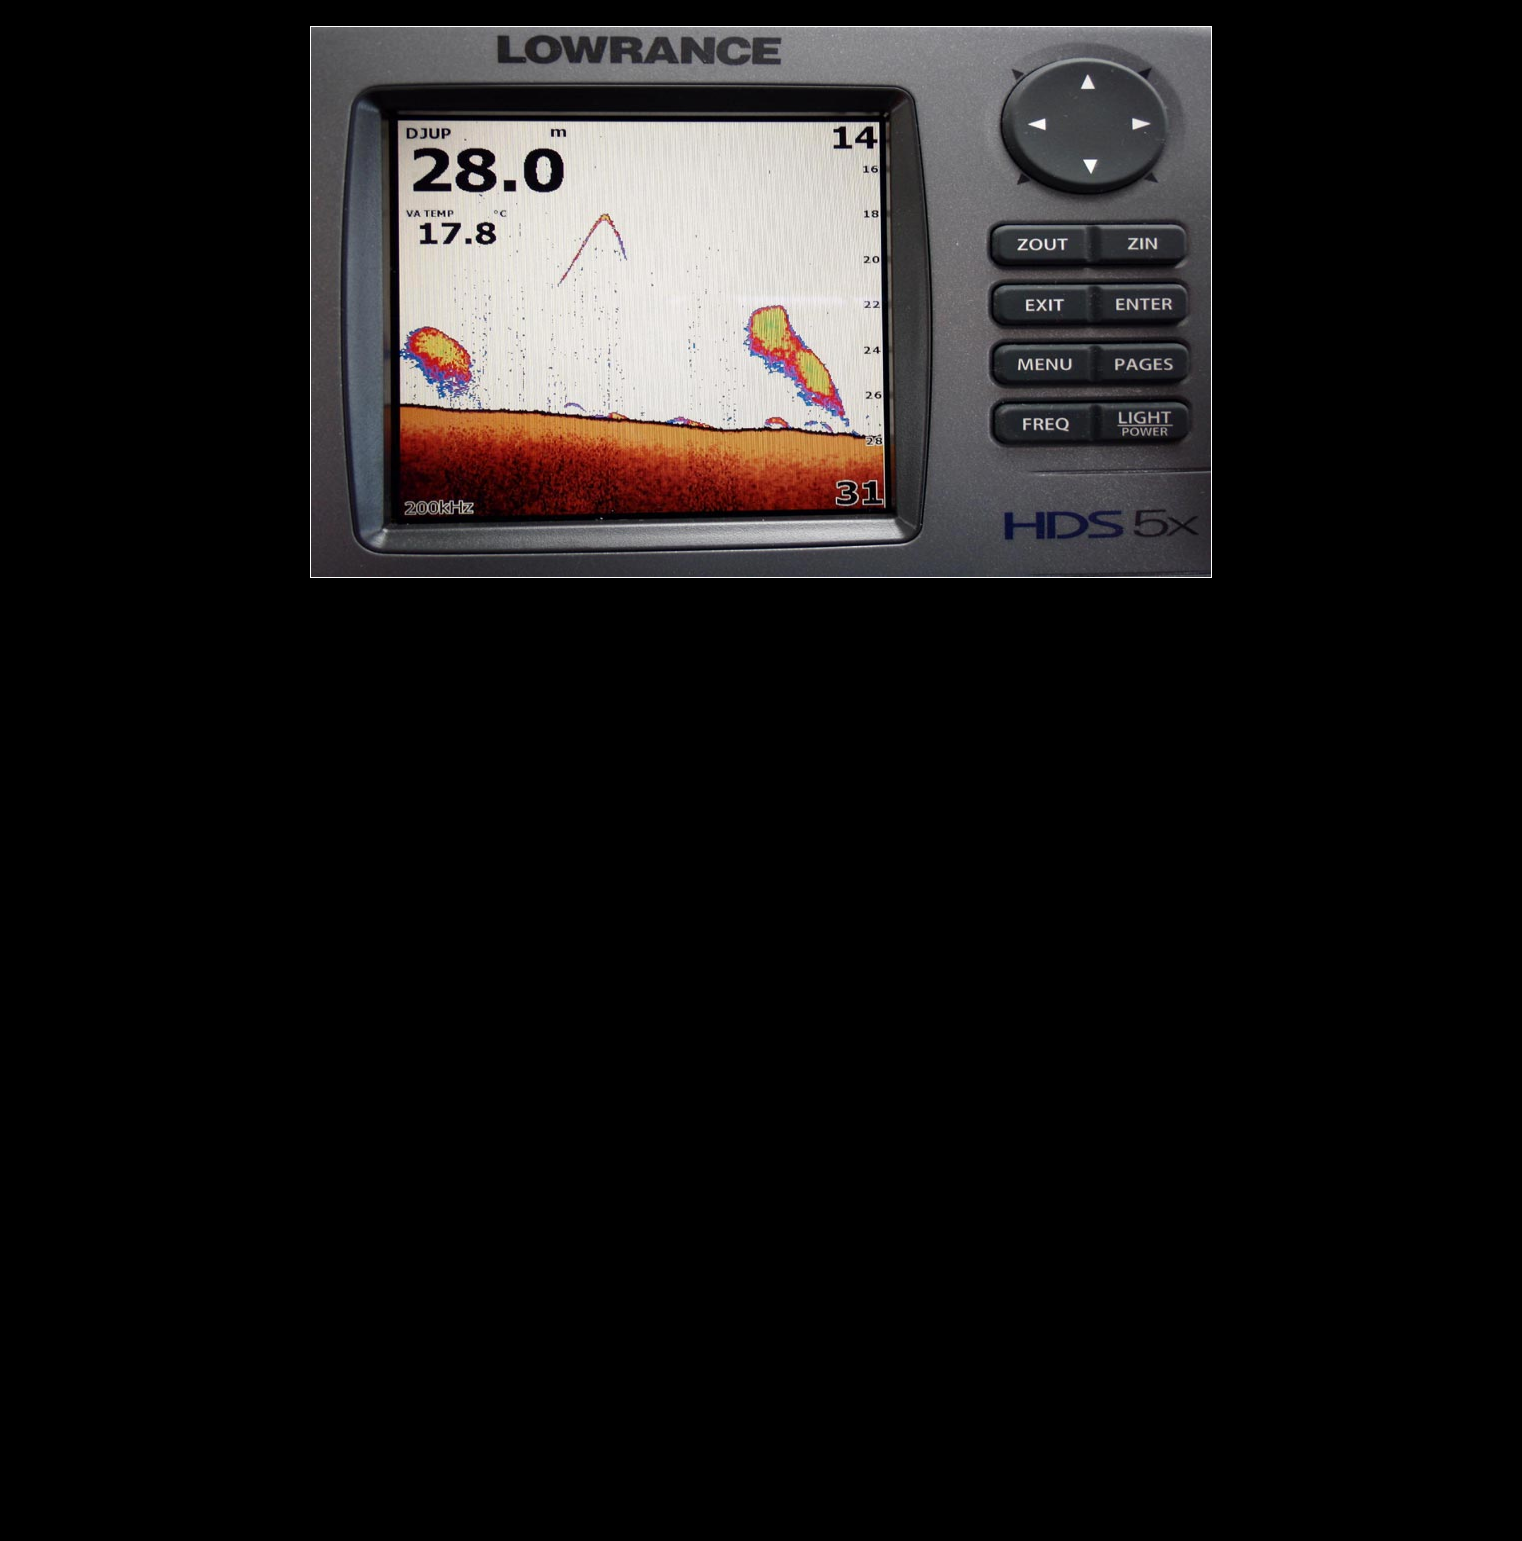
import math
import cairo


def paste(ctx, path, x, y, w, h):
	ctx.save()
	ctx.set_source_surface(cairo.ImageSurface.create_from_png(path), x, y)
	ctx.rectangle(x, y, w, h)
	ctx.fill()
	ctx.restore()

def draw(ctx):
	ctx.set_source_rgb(0, 0, 0)
	ctx.paint()
	ctx.rectangle(310.5, 26.5, 901, 551)
	ctx.set_source_rgb(1, 1, 1)
	ctx.set_line_width(1)
	ctx.stroke()
	paste(ctx, 'media/1.png', 311, 27, 900, 550)


surface = cairo.ImageSurface(cairo.FORMAT_RGB24, 1522, 1541)
ctx = cairo.Context(surface)
options = cairo.FontOptions()
options.set_hint_metrics(cairo.HINT_METRICS_OFF)
options.set_hint_style(cairo.HINT_STYLE_NONE)
ctx.set_font_options(options)
ctx.set_miter_limit(4)
draw(ctx)
surface.write_to_png('image.png')
